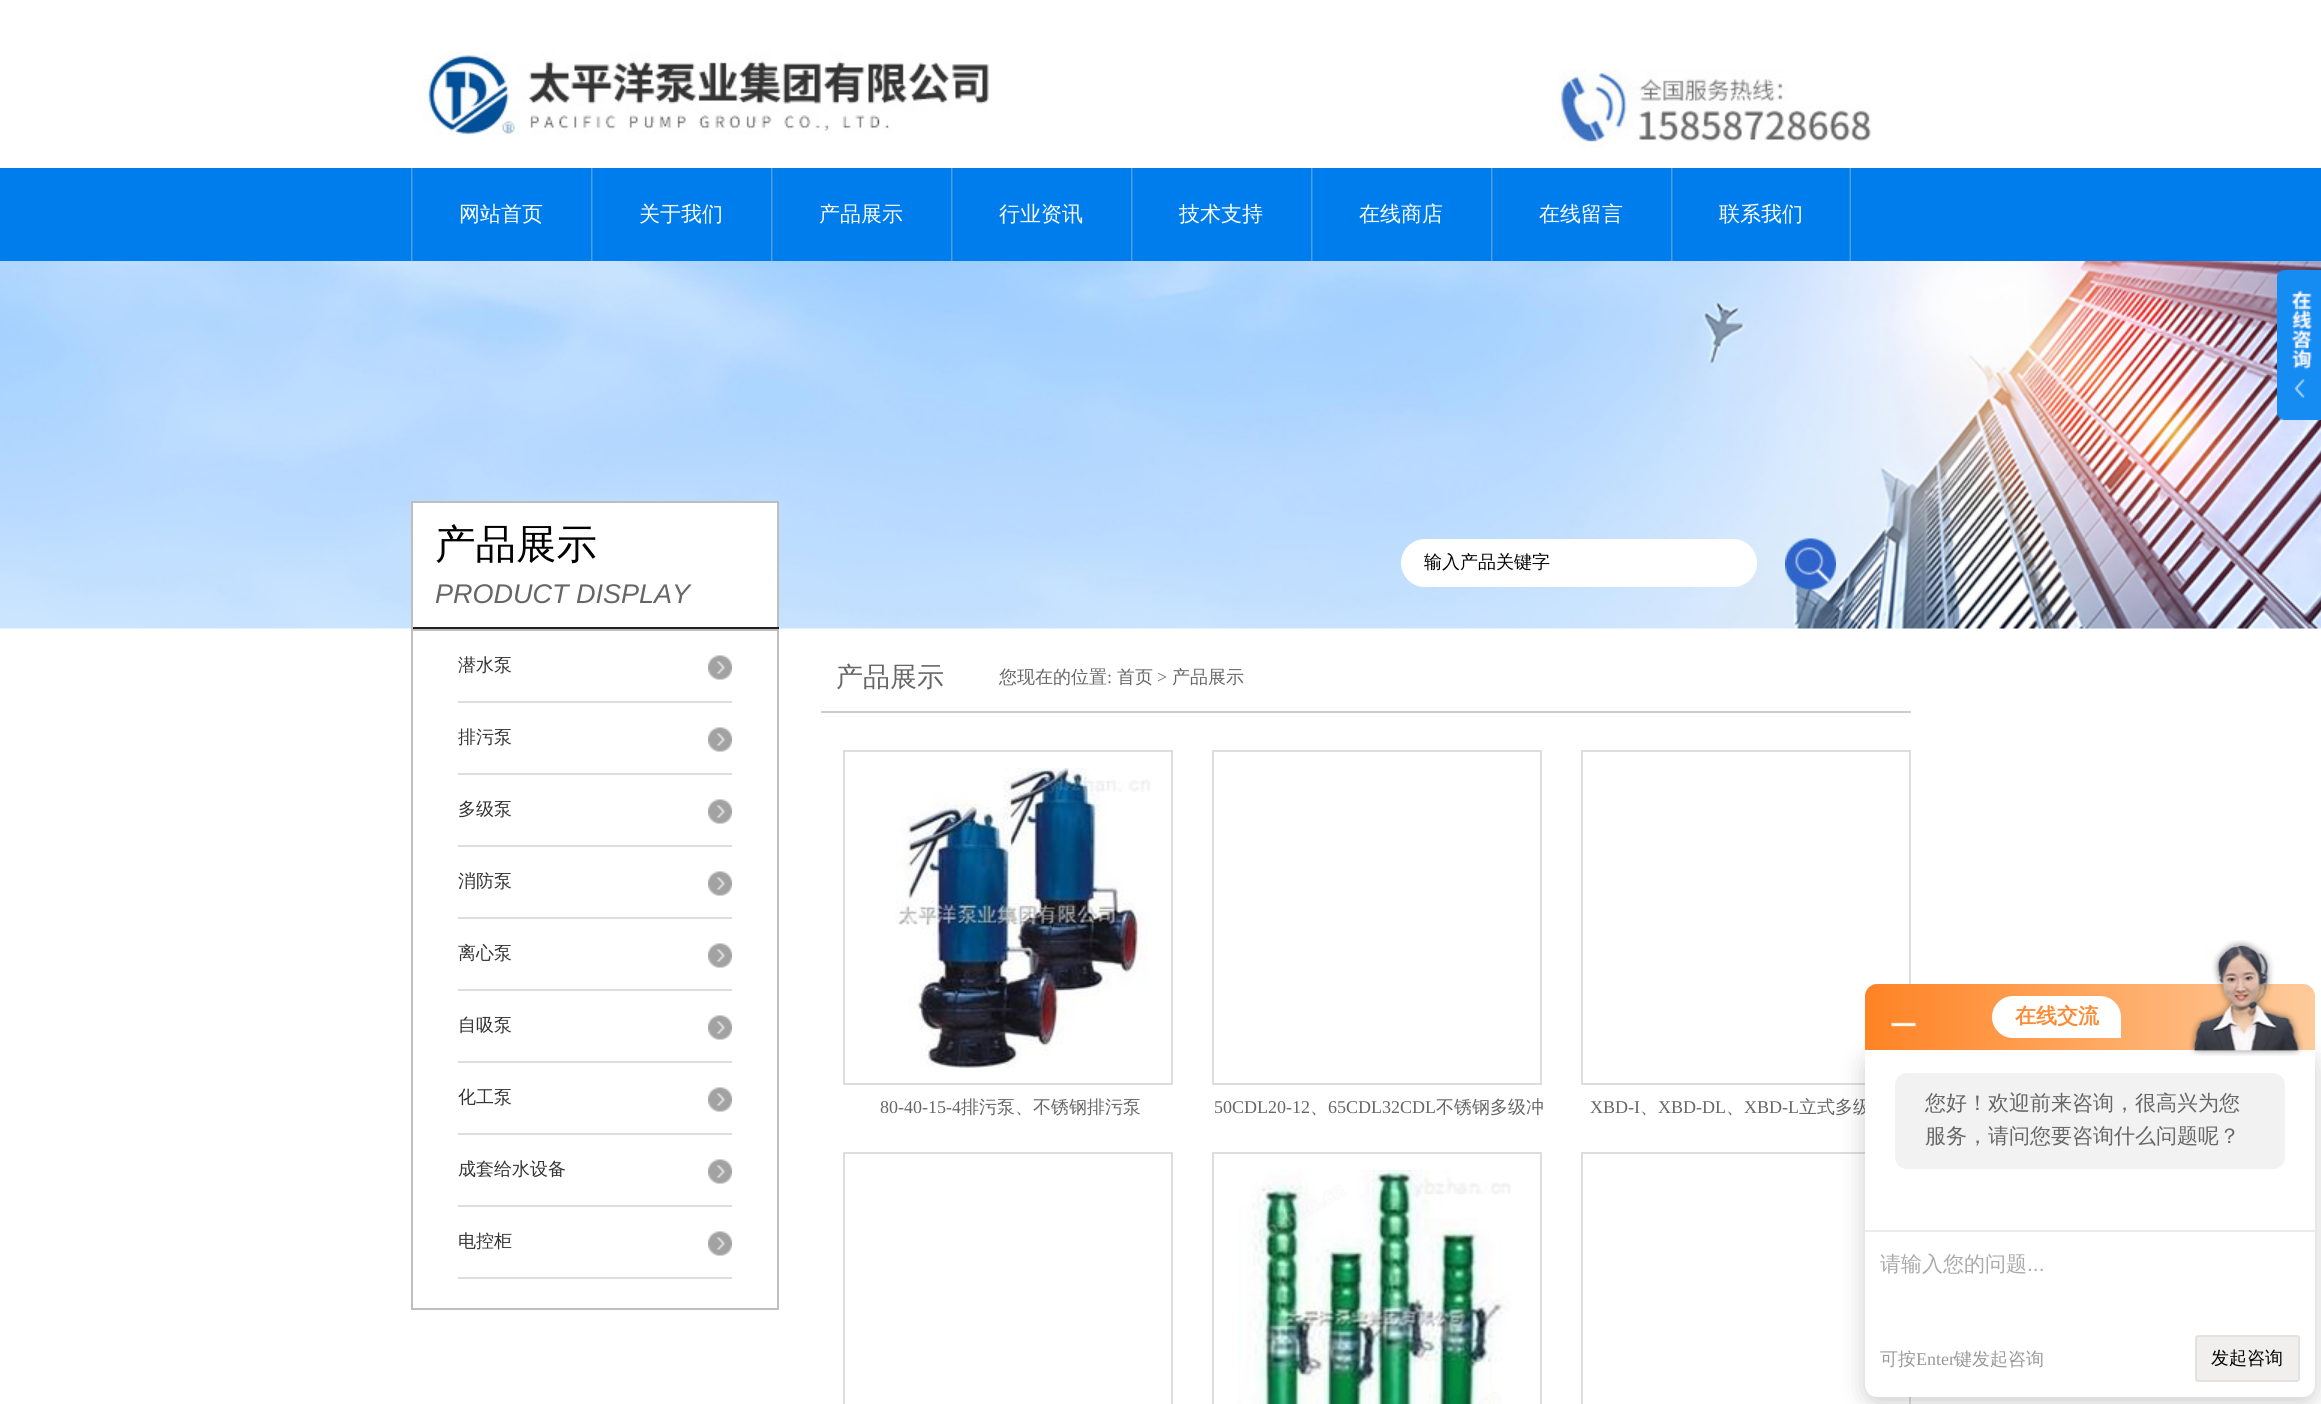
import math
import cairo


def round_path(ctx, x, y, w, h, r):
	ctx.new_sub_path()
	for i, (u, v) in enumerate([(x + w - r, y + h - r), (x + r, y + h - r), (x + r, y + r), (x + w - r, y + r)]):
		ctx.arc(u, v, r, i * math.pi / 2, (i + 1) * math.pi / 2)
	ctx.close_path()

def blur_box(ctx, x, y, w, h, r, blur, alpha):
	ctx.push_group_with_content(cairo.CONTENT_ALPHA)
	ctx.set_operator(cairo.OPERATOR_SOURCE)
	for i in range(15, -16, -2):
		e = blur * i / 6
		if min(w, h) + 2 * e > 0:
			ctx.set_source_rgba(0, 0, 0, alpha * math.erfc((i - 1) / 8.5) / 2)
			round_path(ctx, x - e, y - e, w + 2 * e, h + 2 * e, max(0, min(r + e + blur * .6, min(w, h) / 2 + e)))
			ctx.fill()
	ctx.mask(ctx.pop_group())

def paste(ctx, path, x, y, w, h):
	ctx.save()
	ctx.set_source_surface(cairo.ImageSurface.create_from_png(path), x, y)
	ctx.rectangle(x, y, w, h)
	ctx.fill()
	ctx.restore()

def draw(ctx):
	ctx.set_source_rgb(1, 1, 1)
	ctx.paint()
	paste(ctx, 'media/1.png', 423, 51, 566, 84)
	paste(ctx, 'media/2.png', 1558, 69, 314, 84)
	ctx.set_source_rgb(0, 0.49, 0.922)
	ctx.rectangle(0, 168, 2321, 93)
	ctx.fill()
	paste(ctx, 'media/3.png', 411, 168, 2, 93)
	ctx.select_font_face('WenQuanYi Zen Hei Medium')
	ctx.set_font_size(21)
	ctx.set_source_rgb(1, 1, 1)
	ctx.move_to(459, 221)
	ctx.show_text('网站首页')
	paste(ctx, 'media/3.png', 591, 168, 2, 93)
	ctx.move_to(639, 221)
	ctx.show_text('关于我们')
	paste(ctx, 'media/3.png', 771, 168, 2, 93)
	ctx.move_to(819, 221)
	ctx.show_text('产品展示')
	paste(ctx, 'media/3.png', 951, 168, 2, 93)
	ctx.move_to(999, 221)
	ctx.show_text('行业资讯')
	paste(ctx, 'media/3.png', 1131, 168, 2, 93)
	ctx.move_to(1179, 221)
	ctx.show_text('技术支持')
	paste(ctx, 'media/3.png', 1311, 168, 2, 93)
	ctx.move_to(1359, 221)
	ctx.show_text('在线商店')
	paste(ctx, 'media/3.png', 1491, 168, 2, 93)
	ctx.move_to(1539, 221)
	ctx.show_text('在线留言')
	paste(ctx, 'media/3.png', 1671, 168, 2, 93)
	paste(ctx, 'media/4.png', 1849, 168, 2, 93)
	ctx.move_to(1719, 221)
	ctx.show_text('联系我们')
	paste(ctx, 'media/5.png', 0, 261, 2321, 368)
	paste(ctx, 'media/6.png', 2277, 270, 44, 150)
	ctx.rectangle(413, 503, 364, 124)
	ctx.fill()
	ctx.set_source_rgb(0.745, 0.745, 0.745)
	ctx.rectangle(411, 501, 368, 2)
	ctx.rectangle(777, 501, 2, 128)
	ctx.fill()
	ctx.set_source_rgb(0.137, 0.125, 0.114)
	ctx.rectangle(411, 627, 368, 2)
	ctx.fill()
	ctx.set_source_rgb(0.745, 0.745, 0.745)
	ctx.rectangle(411, 501, 2, 128)
	ctx.fill()
	ctx.set_font_size(40.5)
	ctx.set_source_rgb(0, 0, 0)
	ctx.move_to(435, 558)
	ctx.show_text('产品展示')
	ctx.select_font_face('Liberation Sans', cairo.FONT_SLANT_ITALIC)
	ctx.set_font_size(27)
	ctx.set_source_rgb(0.4, 0.4, 0.4)
	ctx.move_to(435, 603)
	ctx.show_text('PRODUCT DISPLAY')
	ctx.set_source_rgb(1, 1, 1)
	round_path(ctx, 1401, 539, 356, 48, 24)
	ctx.fill()
	ctx.select_font_face('WenQuanYi Zen Hei Medium')
	ctx.set_font_size(18)
	ctx.set_source_rgb(0, 0, 0)
	ctx.move_to(1424, 568)
	ctx.show_text('输入产品关键字')
	paste(ctx, 'media/7.png', 1785, 538, 51, 52)
	ctx.rectangle(412, 630, 366, 679)
	ctx.set_source_rgb(0.745, 0.745, 0.745)
	ctx.stroke()
	paste(ctx, 'media/8.png', 708, 655, 24, 25)
	ctx.set_source_rgb(0.867, 0.867, 0.867)
	ctx.rectangle(458, 701, 274, 2)
	ctx.fill()
	ctx.set_source_rgb(0.2, 0.2, 0.2)
	ctx.move_to(458, 671)
	ctx.show_text('潜水泵')
	paste(ctx, 'media/8.png', 708, 727, 24, 25)
	ctx.set_source_rgb(0.867, 0.867, 0.867)
	ctx.rectangle(458, 773, 274, 2)
	ctx.fill()
	ctx.set_source_rgb(0.2, 0.2, 0.2)
	ctx.move_to(458, 743)
	ctx.show_text('排污泵')
	paste(ctx, 'media/8.png', 708, 799, 24, 25)
	ctx.set_source_rgb(0.867, 0.867, 0.867)
	ctx.rectangle(458, 845, 274, 2)
	ctx.fill()
	ctx.set_source_rgb(0.2, 0.2, 0.2)
	ctx.move_to(458, 815)
	ctx.show_text('多级泵')
	paste(ctx, 'media/8.png', 708, 871, 24, 25)
	ctx.set_source_rgb(0.867, 0.867, 0.867)
	ctx.rectangle(458, 917, 274, 2)
	ctx.fill()
	ctx.set_source_rgb(0.2, 0.2, 0.2)
	ctx.move_to(458, 887)
	ctx.show_text('消防泵')
	paste(ctx, 'media/8.png', 708, 943, 24, 25)
	ctx.set_source_rgb(0.867, 0.867, 0.867)
	ctx.rectangle(458, 989, 274, 2)
	ctx.fill()
	ctx.set_source_rgb(0.2, 0.2, 0.2)
	ctx.move_to(458, 959)
	ctx.show_text('离心泵')
	paste(ctx, 'media/8.png', 708, 1015, 24, 25)
	ctx.set_source_rgb(0.867, 0.867, 0.867)
	ctx.rectangle(458, 1061, 274, 2)
	ctx.fill()
	ctx.set_source_rgb(0.2, 0.2, 0.2)
	ctx.move_to(458, 1031)
	ctx.show_text('自吸泵')
	paste(ctx, 'media/8.png', 708, 1087, 24, 25)
	ctx.set_source_rgb(0.867, 0.867, 0.867)
	ctx.rectangle(458, 1133, 274, 2)
	ctx.fill()
	ctx.set_source_rgb(0.2, 0.2, 0.2)
	ctx.move_to(458, 1103)
	ctx.show_text('化工泵')
	paste(ctx, 'media/8.png', 708, 1159, 24, 25)
	ctx.set_source_rgb(0.867, 0.867, 0.867)
	ctx.rectangle(458, 1205, 274, 2)
	ctx.fill()
	ctx.set_source_rgb(0.2, 0.2, 0.2)
	ctx.move_to(458, 1175)
	ctx.show_text('成套给水设备')
	paste(ctx, 'media/8.png', 708, 1231, 24, 25)
	ctx.set_source_rgb(0.867, 0.867, 0.867)
	ctx.rectangle(458, 1277, 274, 2)
	ctx.fill()
	ctx.set_source_rgb(0.2, 0.2, 0.2)
	ctx.move_to(458, 1247)
	ctx.show_text('电控柜')
	ctx.set_source_rgb(0.8, 0.8, 0.8)
	ctx.rectangle(821, 711, 1090, 2)
	ctx.fill()
	ctx.set_font_size(27)
	ctx.set_source_rgb(0.4, 0.4, 0.4)
	ctx.move_to(836, 686)
	ctx.show_text('产品展示')
	ctx.set_font_size(18)
	ctx.move_to(999, 683)
	ctx.show_text('您现在的位置')
	ctx.select_font_face('Liberation Serif')
	ctx.move_to(1107, 683)
	ctx.show_text(':')
	ctx.select_font_face('WenQuanYi Zen Hei Medium')
	ctx.move_to(1117, 683)
	ctx.show_text('首页')
	ctx.select_font_face('Liberation Serif')
	ctx.move_to(1157, 683)
	ctx.show_text('>')
	ctx.select_font_face('WenQuanYi Zen Hei Medium')
	ctx.move_to(1172, 683)
	ctx.show_text('产品展示')
	ctx.rectangle(844, 751, 328, 333)
	ctx.set_source_rgb(0.867, 0.867, 0.867)
	ctx.stroke()
	paste(ctx, 'media/9.png', 895, 768, 256, 300)
	ctx.select_font_face('Liberation Serif')
	ctx.set_source_rgb(0.4, 0.4, 0.4)
	ctx.move_to(880, 1113)
	ctx.show_text('80-40-15-4')
	ctx.select_font_face('WenQuanYi Zen Hei Medium')
	ctx.move_to(961, 1113)
	ctx.show_text('排污泵、不锈钢排污泵')
	ctx.rectangle(1213, 751, 328, 333)
	ctx.set_source_rgb(0.867, 0.867, 0.867)
	ctx.stroke()
	ctx.select_font_face('Liberation Serif')
	ctx.set_source_rgb(0.4, 0.4, 0.4)
	ctx.move_to(1214, 1113)
	ctx.show_text('50CDL20-12')
	ctx.select_font_face('WenQuanYi Zen Hei Medium')
	ctx.move_to(1310, 1113)
	ctx.show_text('、')
	ctx.select_font_face('Liberation Serif')
	ctx.move_to(1328, 1113)
	ctx.show_text('65CDL32CDL')
	ctx.select_font_face('WenQuanYi Zen Hei Medium')
	ctx.move_to(1436, 1113)
	ctx.show_text('不锈钢多级冲')
	ctx.rectangle(1582, 751, 328, 333)
	ctx.set_source_rgb(0.867, 0.867, 0.867)
	ctx.stroke()
	ctx.select_font_face('Liberation Serif')
	ctx.set_source_rgb(0.4, 0.4, 0.4)
	ctx.move_to(1590, 1113)
	ctx.show_text('XBD-I')
	ctx.select_font_face('WenQuanYi Zen Hei Medium')
	ctx.move_to(1640, 1113)
	ctx.show_text('、')
	ctx.select_font_face('Liberation Serif')
	ctx.move_to(1658, 1113)
	ctx.show_text('XBD-DL')
	ctx.select_font_face('WenQuanYi Zen Hei Medium')
	ctx.move_to(1726, 1113)
	ctx.show_text('、')
	ctx.select_font_face('Liberation Serif')
	ctx.move_to(1744, 1113)
	ctx.show_text('XBD-L')
	ctx.select_font_face('WenQuanYi Zen Hei Medium')
	ctx.move_to(1799, 1113)
	ctx.show_text('立式多级')
	ctx.rectangle(844, 1153, 328, 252)
	ctx.set_source_rgb(0.867, 0.867, 0.867)
	ctx.stroke()
	ctx.rectangle(1213, 1153, 328, 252)
	ctx.stroke()
	paste(ctx, 'media/10.png', 1238, 1170, 273, 234)
	ctx.rectangle(1582, 1153, 328, 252)
	ctx.stroke()
	ctx.set_source_rgb(0, 0, 0)
	blur_box(ctx, 1865, 1056, 450, 347, 12, 12, 0.2)
	gradient = cairo.LinearGradient(1865, 1017, 2315, 1017)
	gradient.add_color_stop_rgba(0, 1, 0.514, 0.141, 1)
	gradient.add_color_stop_rgba(1, 0.996, 0.796, 0.612, 1)
	ctx.set_source(gradient)
	ctx.new_path()
	ctx.move_to(1877, 984)
	ctx.line_to(2303, 984)
	ctx.curve_to(2309.5, 984, 2315, 989.5, 2315, 996)
	ctx.line_to(2315, 1050)
	ctx.line_to(1865, 1050)
	ctx.line_to(1865, 996)
	ctx.curve_to(1865, 989.5, 1870.5, 984, 1877, 984)
	ctx.close_path()
	ctx.fill()
	paste(ctx, 'media/11.png', 1891, 1022, 25, 5)
	ctx.set_source_rgb(1, 1, 1)
	ctx.new_path()
	ctx.move_to(2013, 996)
	ctx.line_to(2100, 996)
	ctx.curve_to(2111.5, 996, 2121, 1005.5, 2121, 1017)
	ctx.line_to(2121, 1038)
	ctx.line_to(2013, 1038)
	ctx.curve_to(2001.5, 1038, 1992, 1028.5, 1992, 1017)
	ctx.curve_to(1992, 1005.5, 2001.5, 996, 2013, 996)
	ctx.close_path()
	ctx.fill()
	ctx.select_font_face('WenQuanYi Zen Hei', cairo.FONT_SLANT_NORMAL, cairo.FONT_WEIGHT_BOLD)
	ctx.set_font_size(21)
	ctx.set_source_rgb(0.984, 0.545, 0.212)
	ctx.move_to(2015, 1023)
	ctx.show_text('在线交流')
	ctx.set_source_rgb(1, 1, 1)
	ctx.new_path()
	ctx.move_to(1865, 1050)
	ctx.line_to(2315, 1050)
	ctx.line_to(2315, 1385)
	ctx.curve_to(2315, 1391.5, 2309.5, 1397, 2303, 1397)
	ctx.line_to(1877, 1397)
	ctx.curve_to(1870.5, 1397, 1865, 1391.5, 1865, 1385)
	ctx.close_path()
	ctx.fill()
	paste(ctx, 'media/12.png', 2189, 940, 114, 116)
	ctx.set_source_rgb(0.949, 0.949, 0.949)
	round_path(ctx, 1895, 1073, 390, 96, 12)
	ctx.fill()
	ctx.select_font_face('WenQuanYi Zen Hei Medium')
	ctx.set_source_rgb(0.4, 0.4, 0.4)
	ctx.move_to(1925, 1110)
	ctx.show_text('您好！欢迎前来咨询，很高兴为您')
	ctx.move_to(1925, 1143)
	ctx.show_text('服务，请问您要咨询什么问题呢？')
	ctx.set_source_rgb(0.918, 0.918, 0.918)
	ctx.rectangle(1865, 1230, 450, 2)
	ctx.fill()
	ctx.set_source_rgb(0.667, 0.667, 0.667)
	ctx.move_to(1880, 1271)
	ctx.show_text('请输入您的问题')
	ctx.select_font_face('Liberation Sans')
	ctx.move_to(2027, 1271)
	ctx.show_text('...')
	ctx.select_font_face('WenQuanYi Zen Hei Medium')
	ctx.set_font_size(18)
	ctx.set_source_rgb(0.6, 0.6, 0.6)
	ctx.move_to(1880, 1365)
	ctx.show_text('可按')
	ctx.select_font_face('Liberation Serif')
	ctx.move_to(1916, 1365)
	ctx.show_text('Enter')
	ctx.select_font_face('WenQuanYi Zen Hei Medium')
	ctx.move_to(1954, 1365)
	ctx.show_text('键发起咨询')
	ctx.set_source_rgb(0.941, 0.937, 0.929)
	round_path(ctx, 2196, 1336, 103, 45, 2)
	ctx.fill_preserve()
	ctx.set_source_rgb(0.886, 0.886, 0.886)
	ctx.stroke()
	ctx.set_source_rgb(0, 0, 0)
	ctx.move_to(2211, 1364)
	ctx.show_text('发起咨询')


surface = cairo.ImageSurface(cairo.FORMAT_RGB24, 2321, 1404)
ctx = cairo.Context(surface)
options = cairo.FontOptions()
options.set_hint_metrics(cairo.HINT_METRICS_OFF)
options.set_hint_style(cairo.HINT_STYLE_NONE)
ctx.set_font_options(options)
ctx.set_miter_limit(4)
draw(ctx)
surface.write_to_png('image.png')
